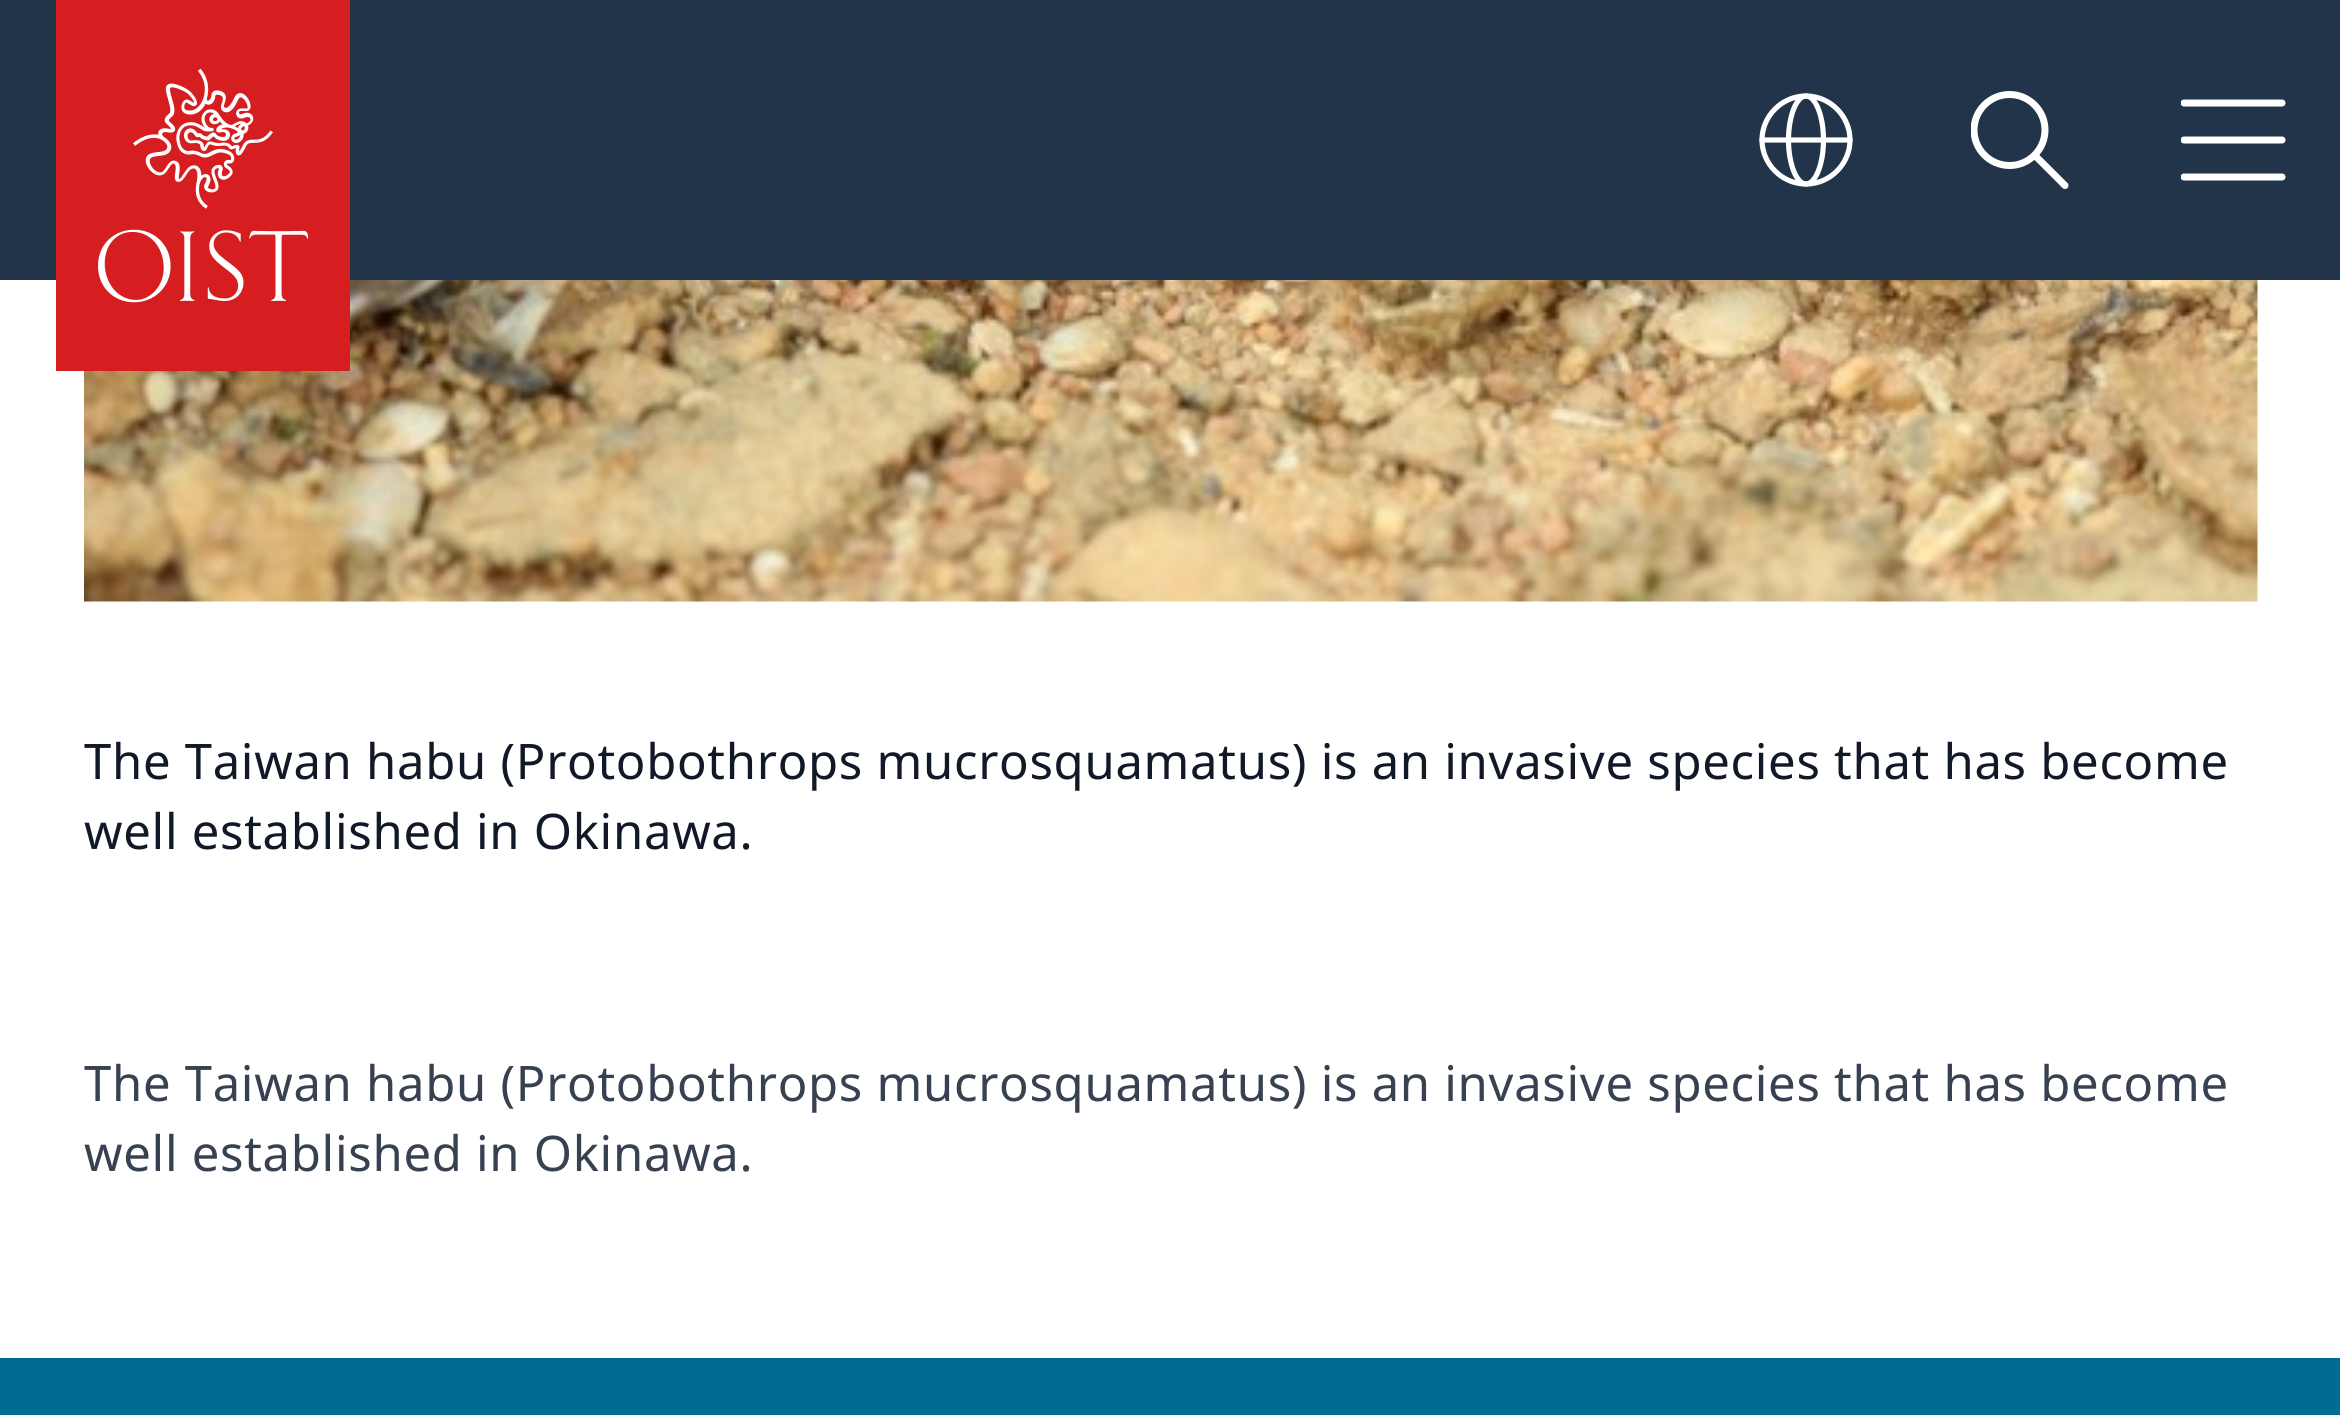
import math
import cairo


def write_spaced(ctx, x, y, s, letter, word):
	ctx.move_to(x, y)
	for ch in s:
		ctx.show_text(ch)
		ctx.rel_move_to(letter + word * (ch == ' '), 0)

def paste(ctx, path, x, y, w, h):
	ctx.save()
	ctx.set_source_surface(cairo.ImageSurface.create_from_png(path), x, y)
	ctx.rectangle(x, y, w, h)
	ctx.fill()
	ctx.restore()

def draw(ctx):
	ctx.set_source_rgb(1, 1, 1)
	ctx.paint()
	ctx.set_source_rgb(0.129, 0.204, 0.286)
	ctx.rectangle(0, 0, 2340, 280)
	ctx.fill()
	paste(ctx, 'media/2.png', 84, 280, 2174, 322)
	paste(ctx, 'media/1.png', 56, 0, 294, 371)
	ctx.new_path()
	ctx.move_to(1806, 184)
	ctx.curve_to(1830, 184, 1850, 164, 1850, 140)
	ctx.curve_to(1850, 116, 1830, 96, 1806, 96)
	ctx.curve_to(1782, 96, 1762, 116, 1762, 140)
	ctx.curve_to(1762, 164, 1782, 184, 1806, 184)
	ctx.close_path()
	ctx.set_source_rgb(1, 1, 1)
	ctx.set_line_width(5.2)
	ctx.set_line_cap(cairo.LINE_CAP_ROUND)
	ctx.set_line_join(cairo.LINE_JOIN_ROUND)
	ctx.stroke()
	ctx.new_path()
	ctx.move_to(1788.5, 140)
	ctx.curve_to(1788.5, 164, 1796.5, 184, 1806, 184)
	ctx.curve_to(1815.5, 184, 1823.5, 164, 1823.5, 140)
	ctx.curve_to(1823.5, 116, 1815.5, 96, 1806, 96)
	ctx.curve_to(1796.5, 96, 1788.5, 116, 1788.5, 140)
	ctx.close_path()
	ctx.move_to(1762, 140)
	ctx.line_to(1850, 140)
	ctx.stroke()
	ctx.save()
	ctx.rectangle(1971, 91, 98, 98)
	ctx.clip()
	ctx.new_path()
	ctx.move_to(2065, 185.5)
	ctx.line_to(2034.5, 155)
	ctx.close_path()
	ctx.move_to(2045, 130)
	ctx.curve_to(2045, 149.5, 2029, 165.5, 2009.5, 165.5)
	ctx.curve_to(1990, 165.5, 1974, 149.5, 1974, 130)
	ctx.curve_to(1974, 110.5, 1990, 94.5, 2009.5, 94.5)
	ctx.curve_to(2029, 94.5, 2045, 110.5, 2045, 130)
	ctx.close_path()
	ctx.set_line_width(7)
	ctx.stroke()
	ctx.restore()
	ctx.save()
	ctx.rectangle(2181, 98, 105, 84)
	ctx.clip()
	ctx.new_path()
	ctx.move_to(2184, 177)
	ctx.line_to(2282, 177)
	ctx.move_to(2184, 103)
	ctx.line_to(2282, 103)
	ctx.close_path()
	ctx.move_to(2184, 140)
	ctx.line_to(2282, 140)
	ctx.close_path()
	ctx.set_line_width(7)
	ctx.stroke()
	ctx.restore()
	ctx.select_font_face('Noto Sans')
	ctx.set_font_size(49)
	ctx.set_source_rgb(0.067, 0.094, 0.153)
	write_spaced(ctx, 84, 779, 'The Taiwan habu (Protobothrops mucrosquamatus) is an invasive species that has become', 0.7, 0)
	write_spaced(ctx, 84, 849, 'well established in Okinawa.', 0.7, 0)
	ctx.set_source_rgb(0.216, 0.255, 0.318)
	write_spaced(ctx, 84, 1101, 'The Taiwan habu (Protobothrops mucrosquamatus) is an invasive species that has become', 0.7, 0)
	write_spaced(ctx, 84, 1171, 'well established in Okinawa.', 0.7, 0)
	ctx.set_source_rgb(0, 0.424, 0.576)
	ctx.rectangle(0, 1358, 2340, 57)
	ctx.fill()


surface = cairo.ImageSurface(cairo.FORMAT_RGB24, 2340, 1415)
ctx = cairo.Context(surface)
options = cairo.FontOptions()
options.set_hint_metrics(cairo.HINT_METRICS_OFF)
options.set_hint_style(cairo.HINT_STYLE_NONE)
ctx.set_font_options(options)
ctx.set_miter_limit(4)
draw(ctx)
surface.write_to_png('image.png')
